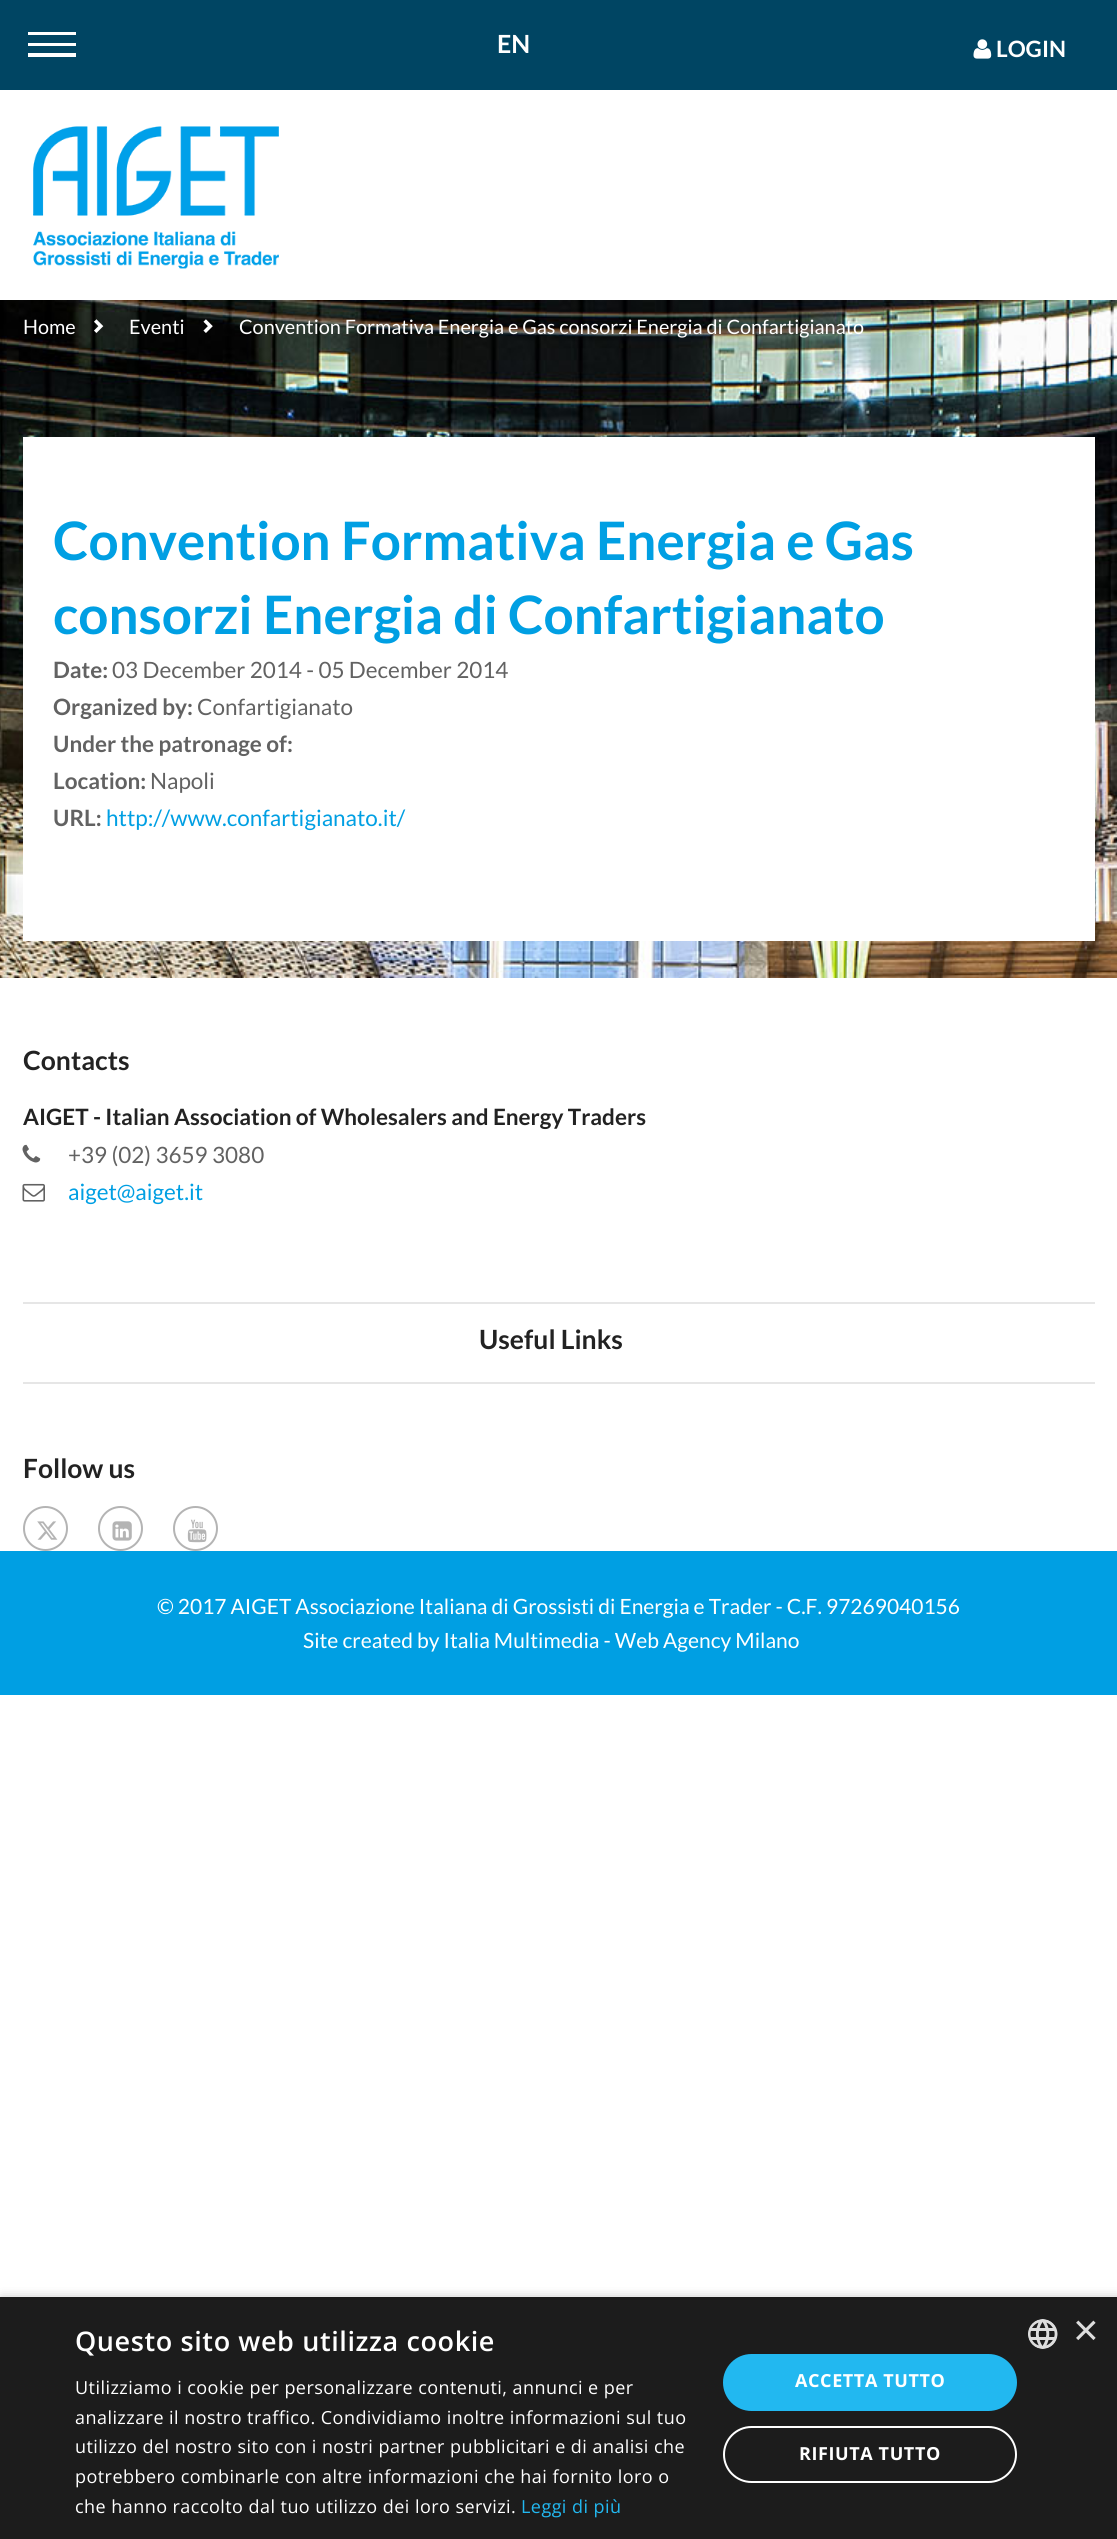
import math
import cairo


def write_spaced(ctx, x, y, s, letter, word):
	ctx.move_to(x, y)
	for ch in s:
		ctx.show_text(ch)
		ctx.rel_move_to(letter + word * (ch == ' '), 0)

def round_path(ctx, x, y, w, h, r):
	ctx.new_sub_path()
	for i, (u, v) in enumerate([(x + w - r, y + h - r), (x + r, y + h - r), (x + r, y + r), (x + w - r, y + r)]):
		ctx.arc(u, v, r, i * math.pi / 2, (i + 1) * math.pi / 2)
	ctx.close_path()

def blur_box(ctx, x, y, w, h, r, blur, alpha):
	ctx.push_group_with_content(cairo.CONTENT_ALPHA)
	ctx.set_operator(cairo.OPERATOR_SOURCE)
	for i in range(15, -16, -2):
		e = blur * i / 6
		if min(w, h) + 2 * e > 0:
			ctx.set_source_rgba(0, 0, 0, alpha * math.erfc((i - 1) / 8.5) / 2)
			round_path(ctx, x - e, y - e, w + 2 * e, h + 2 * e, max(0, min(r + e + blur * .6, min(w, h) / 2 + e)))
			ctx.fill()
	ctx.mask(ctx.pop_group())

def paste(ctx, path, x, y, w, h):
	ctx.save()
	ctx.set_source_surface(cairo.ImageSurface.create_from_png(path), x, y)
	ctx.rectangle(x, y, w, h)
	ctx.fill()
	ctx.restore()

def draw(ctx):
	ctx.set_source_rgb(1, 1, 1)
	ctx.paint()
	ctx.set_source_rgb(0, 0.271, 0.388)
	ctx.rectangle(0, 0, 1117, 90)
	ctx.fill()
	ctx.set_source_rgb(1, 1, 1)
	ctx.new_path()
	ctx.move_to(28, 53)
	ctx.line_to(76, 53)
	ctx.line_to(76, 57)
	ctx.line_to(28, 57)
	ctx.close_path()
	ctx.move_to(28, 43)
	ctx.line_to(76, 43)
	ctx.line_to(76, 46)
	ctx.line_to(28, 46)
	ctx.close_path()
	ctx.move_to(28, 32)
	ctx.line_to(76, 32)
	ctx.line_to(76, 35)
	ctx.line_to(28, 35)
	ctx.close_path()
	ctx.fill()
	ctx.select_font_face('Lato', cairo.FONT_SLANT_NORMAL, cairo.FONT_WEIGHT_BOLD)
	ctx.set_font_size(25)
	ctx.move_to(497, 53)
	ctx.show_text('EN')
	paste(ctx, 'media/1.png', 973, 39, 19, 20)
	ctx.set_font_size(22.5)
	ctx.move_to(996, 57)
	ctx.show_text('LOGIN')
	paste(ctx, 'media/2.png', 33, 126, 246, 143)
	paste(ctx, 'media/3.png', 0, 300, 1117, 678)
	ctx.select_font_face('Lato')
	ctx.set_font_size(19.85)
	ctx.move_to(23, 334)
	ctx.show_text('Home')
	paste(ctx, 'media/4.png', 94, 319, 10, 14)
	ctx.move_to(129, 334)
	ctx.show_text('Eventi')
	paste(ctx, 'media/5.png', 203, 319, 10, 14)
	ctx.move_to(239, 334)
	ctx.show_text('Convention Formativa Energia e Gas consorzi Energia di Confartigianato')
	ctx.rectangle(23, 437, 1072, 504)
	ctx.fill()
	ctx.select_font_face('Lato', cairo.FONT_SLANT_NORMAL, cairo.FONT_WEIGHT_BOLD)
	ctx.set_font_size(53)
	ctx.set_source_rgb(0, 0.624, 0.89)
	ctx.move_to(53, 560)
	ctx.show_text('Convention Formativa Energia e Gas')
	ctx.move_to(53, 634)
	ctx.show_text('consorzi Energia di Confartigianato')
	ctx.set_font_size(22.5)
	ctx.set_source_rgb(0.384, 0.384, 0.384)
	ctx.move_to(53, 678)
	ctx.show_text('Date:')
	ctx.select_font_face('Lato')
	ctx.move_to(112, 678)
	ctx.show_text('03 December 2014 - 05 December 2014')
	ctx.select_font_face('Lato', cairo.FONT_SLANT_NORMAL, cairo.FONT_WEIGHT_BOLD)
	ctx.move_to(53, 715)
	ctx.show_text('Organized by:')
	ctx.select_font_face('Lato')
	ctx.move_to(197, 715)
	ctx.show_text('Confartigianato')
	ctx.select_font_face('Lato', cairo.FONT_SLANT_NORMAL, cairo.FONT_WEIGHT_BOLD)
	ctx.move_to(53, 752)
	ctx.show_text('Under the patronage of:')
	ctx.move_to(53, 789)
	ctx.show_text('Location:')
	ctx.select_font_face('Lato')
	ctx.move_to(150, 789)
	ctx.show_text('Napoli')
	ctx.select_font_face('Lato', cairo.FONT_SLANT_NORMAL, cairo.FONT_WEIGHT_BOLD)
	ctx.move_to(53, 826)
	ctx.show_text('URL:')
	ctx.select_font_face('Lato')
	ctx.set_source_rgb(0, 0.624, 0.89)
	ctx.move_to(106, 826)
	ctx.show_text('http://www.confartigianato.it/')
	ctx.select_font_face('Lato', cairo.FONT_SLANT_NORMAL, cairo.FONT_WEIGHT_BOLD)
	ctx.set_font_size(26.5)
	ctx.set_source_rgb(0.133, 0.133, 0.133)
	ctx.move_to(23, 1070)
	ctx.show_text('Contacts')
	ctx.set_font_size(22.5)
	ctx.move_to(23, 1125)
	ctx.show_text('AIGET - Italian Association of Wholesalers and Energy Traders')
	paste(ctx, 'media/6.png', 22, 1144, 19, 19)
	ctx.select_font_face('Lato')
	ctx.set_source_rgb(0.384, 0.384, 0.384)
	ctx.move_to(68, 1163)
	ctx.show_text('+39 (02) 3659 3080')
	paste(ctx, 'media/7.png', 22, 1183, 23, 19)
	ctx.set_source_rgb(0, 0.624, 0.89)
	ctx.move_to(68, 1200)
	ctx.show_text('aiget@aiget.it')
	ctx.set_source_rgb(0.902, 0.902, 0.902)
	ctx.rectangle(23, 1302, 1072, 2)
	ctx.fill()
	ctx.rectangle(23, 1382, 1072, 2)
	ctx.fill()
	ctx.select_font_face('Lato', cairo.FONT_SLANT_NORMAL, cairo.FONT_WEIGHT_BOLD)
	ctx.set_font_size(26.5)
	ctx.set_source_rgb(0.133, 0.133, 0.133)
	ctx.move_to(479, 1349)
	ctx.show_text('Useful Links')
	ctx.move_to(23, 1478)
	ctx.show_text('Follow us')
	ctx.new_path()
	ctx.arc(45.5, 1528.5, 21.5, 0, 2 * math.pi)
	ctx.set_source_rgb(0.706, 0.706, 0.706)
	ctx.stroke()
	paste(ctx, 'media/8.png', 37, 1521, 21, 19)
	ctx.arc(120.5, 1528.5, 21.5, 0, 2 * math.pi)
	ctx.stroke()
	paste(ctx, 'media/9.png', 112, 1521, 20, 20)
	ctx.arc(195.5, 1528.5, 21.5, 0, 2 * math.pi)
	ctx.stroke()
	paste(ctx, 'media/10.png', 187, 1519, 20, 24)
	ctx.set_source_rgb(0, 0.624, 0.89)
	ctx.rectangle(0, 1551, 1117, 144)
	ctx.fill()
	ctx.select_font_face('Lato')
	ctx.set_font_size(21)
	ctx.set_source_rgb(1, 1, 1)
	ctx.move_to(157, 1614)
	ctx.show_text('© 2017 AIGET Associazione Italiana di Grossisti di Energia e Trader - C.F. 97269040156')
	ctx.move_to(303, 1648)
	ctx.show_text('Site created by Italia Multimedia - Web Agency Milano')
	ctx.set_source_rgb(0, 0, 0)
	blur_box(ctx, 2, 2300, 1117, 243, 0, 6, 0.35)
	ctx.set_source_rgb(0.11, 0.11, 0.11)
	ctx.rectangle(0, 2297, 1117, 242)
	ctx.fill()
	ctx.select_font_face('Open Sans SemiBold')
	ctx.set_font_size(27)
	ctx.set_source_rgb(1, 1, 1)
	write_spaced(ctx, 75, 2351, 'Questo sito web utilizza cookie', 0.6, 0)
	ctx.select_font_face('Open Sans')
	ctx.set_font_size(18)
	for x, y, s in [
		(75, 2394, 'Utilizziamo i cookie per personalizzare contenuti, annunci e per'),
		(75, 2424, 'analizzare il nostro traffico. Condividiamo inoltre informazioni sul tuo'),
		(75, 2453, 'utilizzo del nostro sito con i nostri partner pubblicitari e di analisi che'),
		(75, 2483, 'potrebbero combinarle con altre informazioni che hai fornito loro o'),
		(75, 2513, 'che hanno raccolto dal tuo utilizzo dei loro servizi.'),
	]:
		write_spaced(ctx, x, y, s, 0.45, 0)
	ctx.set_source_rgb(0.133, 0.722, 0.941)
	write_spaced(ctx, 521, 2513, 'Leggi di più', 0.45, 0)
	round_path(ctx, 723, 2354, 294, 57, 28.5)
	ctx.fill()
	ctx.select_font_face('Open Sans', cairo.FONT_SLANT_NORMAL, cairo.FONT_WEIGHT_BOLD)
	ctx.set_source_rgb(1, 1, 1)
	write_spaced(ctx, 795, 2387, 'ACCETTA TUTTO', 0.6, 0)
	round_path(ctx, 724, 2427, 292, 55, 27.5)
	ctx.stroke()
	write_spaced(ctx, 799, 2460, 'RIFIUTA TUTTO', 0.6, 0)
	paste(ctx, 'media/11.png', 1028, 2319, 30, 30)
	ctx.select_font_face('Liberation Sans')
	ctx.set_font_size(44)
	ctx.set_source_rgb(0.867, 0.867, 0.867)
	ctx.move_to(1073, 2345)
	ctx.show_text('×')


surface = cairo.ImageSurface(cairo.FORMAT_RGB24, 1117, 2539)
ctx = cairo.Context(surface)
options = cairo.FontOptions()
options.set_hint_metrics(cairo.HINT_METRICS_OFF)
options.set_hint_style(cairo.HINT_STYLE_NONE)
ctx.set_font_options(options)
ctx.set_miter_limit(4)
draw(ctx)
surface.write_to_png('image.png')
